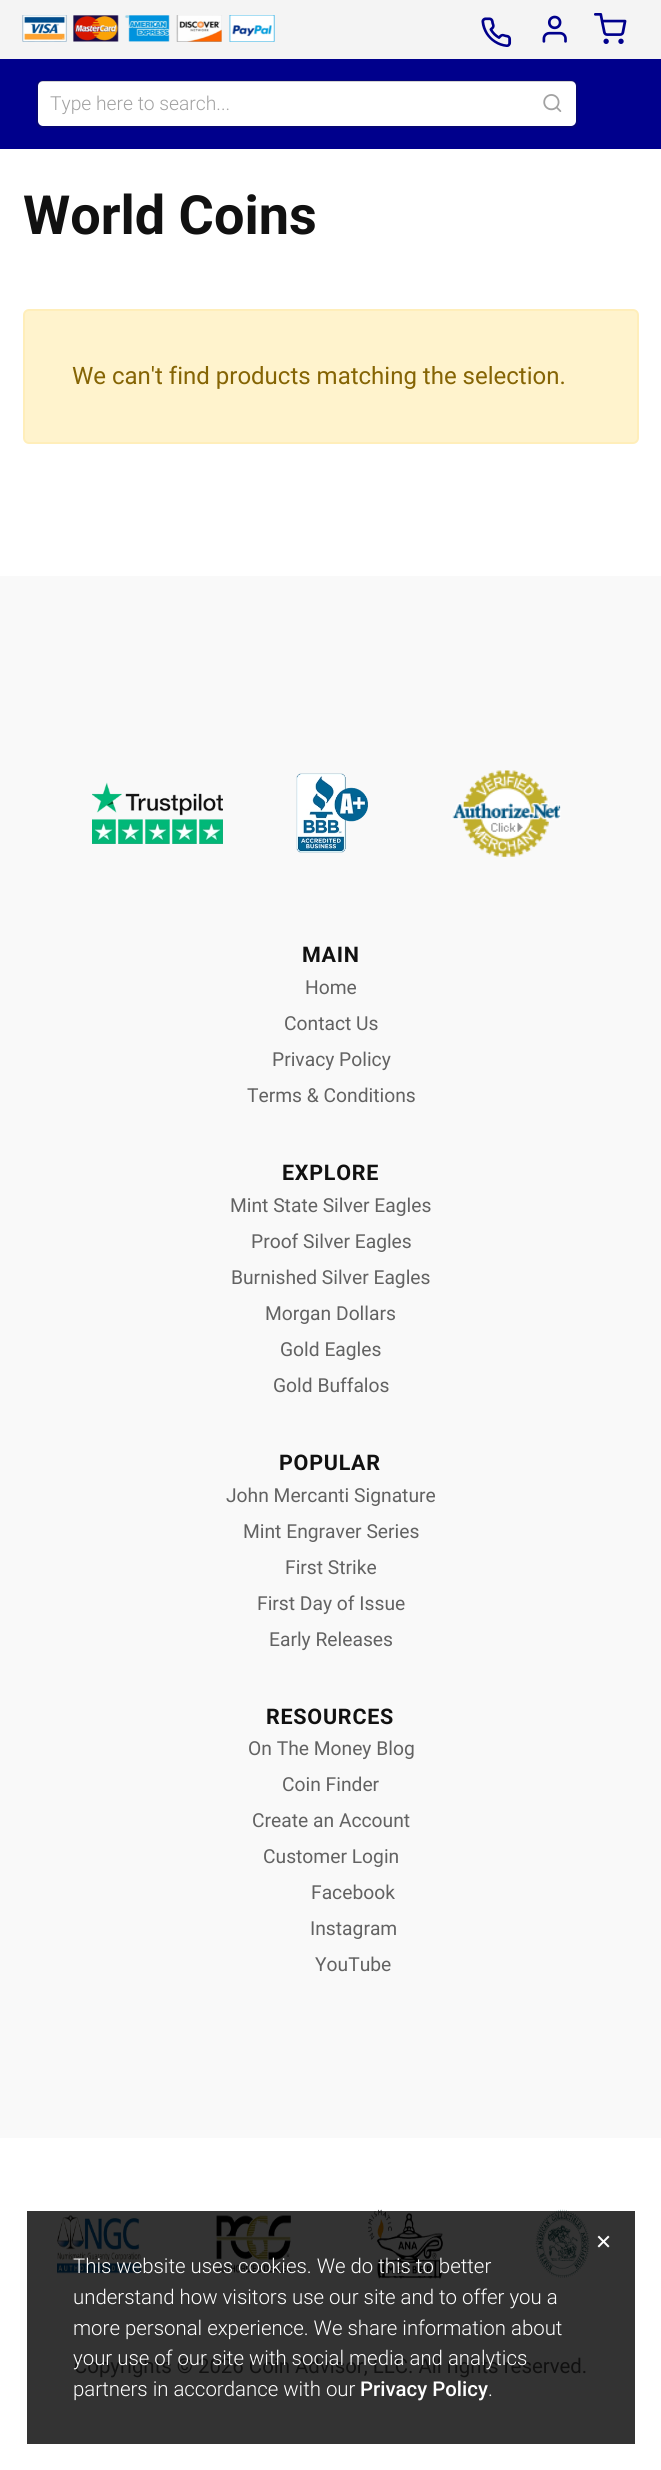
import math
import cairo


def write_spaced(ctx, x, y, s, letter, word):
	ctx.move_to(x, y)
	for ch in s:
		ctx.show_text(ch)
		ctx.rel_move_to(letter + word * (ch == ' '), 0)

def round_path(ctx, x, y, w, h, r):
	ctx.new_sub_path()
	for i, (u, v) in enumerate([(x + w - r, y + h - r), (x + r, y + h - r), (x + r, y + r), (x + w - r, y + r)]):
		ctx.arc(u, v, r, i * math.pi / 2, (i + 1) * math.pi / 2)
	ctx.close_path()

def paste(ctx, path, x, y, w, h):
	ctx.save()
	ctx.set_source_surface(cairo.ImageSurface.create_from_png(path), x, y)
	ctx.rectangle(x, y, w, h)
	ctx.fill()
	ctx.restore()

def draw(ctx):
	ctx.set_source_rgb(1, 1, 1)
	ctx.paint()
	ctx.set_source_rgb(0.2, 0.2, 0.2)
	ctx.rectangle(27, 2211, 608, 233)
	ctx.fill()
	ctx.set_source_rgb(0.957, 0.957, 0.957)
	ctx.rectangle(0, 0, 661, 59)
	ctx.fill()
	paste(ctx, 'media/1.png', 22, 15, 253, 27)
	paste(ctx, 'media/2.png', 481, 17, 31, 30)
	paste(ctx, 'media/3.png', 542, 15, 25, 28)
	paste(ctx, 'media/4.png', 594, 13, 33, 31)
	ctx.set_source_rgb(0, 0, 0.549)
	ctx.rectangle(0, 59, 661, 90)
	ctx.fill()
	ctx.set_source_rgb(1, 1, 1)
	round_path(ctx, 38, 81, 538, 45, 5)
	ctx.fill()
	round_path(ctx, 37, 81, 540, 46, 5)
	ctx.set_source_rgba(0.133, 0.133, 0.133, 0.2)
	ctx.stroke()
	ctx.select_font_face('Roboto Light')
	ctx.set_font_size(19.25)
	ctx.set_source_rgb(0.635, 0.635, 0.635)
	ctx.move_to(50, 110)
	ctx.show_text('Type here to search...')
	paste(ctx, 'media/5.png', 543, 94, 19, 18)
	ctx.select_font_face('Roboto', cairo.FONT_SLANT_NORMAL, cairo.FONT_WEIGHT_BOLD)
	ctx.set_font_size(54)
	ctx.set_source_rgb(0.067, 0.067, 0.067)
	ctx.move_to(23, 234)
	ctx.show_text('World Coins')
	ctx.set_source_rgb(1, 0.953, 0.804)
	round_path(ctx, 24, 310, 614, 133, 5)
	ctx.fill_preserve()
	ctx.set_source_rgb(1, 0.933, 0.729)
	ctx.stroke()
	ctx.select_font_face('Roboto')
	ctx.set_font_size(24)
	ctx.set_source_rgb(0.522, 0.392, 0.016)
	ctx.move_to(72, 384)
	ctx.show_text('We can\'t find products matching the selection.')
	ctx.set_source_rgb(0.973, 0.973, 0.973)
	ctx.rectangle(0, 576, 661, 1562)
	ctx.fill()
	paste(ctx, 'media/6.png', 92, 782, 131, 62)
	paste(ctx, 'media/7.png', 296, 773, 72, 80)
	paste(ctx, 'media/8.png', 451, 770, 110, 87)
	ctx.select_font_face('Roboto', cairo.FONT_SLANT_NORMAL, cairo.FONT_WEIGHT_BOLD)
	ctx.set_font_size(21.5)
	ctx.set_source_rgb(0.067, 0.067, 0.067)
	write_spaced(ctx, 302, 962, 'MAIN', 0.75, 0)
	ctx.select_font_face('Roboto')
	ctx.set_font_size(19.25)
	ctx.set_source_rgb(0.384, 0.384, 0.384)
	for x, y, s in [
		(305, 994, 'Home'),
		(284, 1030, 'Contact Us'),
		(272, 1066, 'Privacy Policy'),
		(247, 1102, 'Terms & Conditions'),
	]:
		ctx.move_to(x, y)
		ctx.show_text(s)
	ctx.select_font_face('Roboto', cairo.FONT_SLANT_NORMAL, cairo.FONT_WEIGHT_BOLD)
	ctx.set_font_size(21.5)
	ctx.set_source_rgb(0.067, 0.067, 0.067)
	write_spaced(ctx, 282, 1180, 'EXPLORE', 0.75, 0)
	ctx.select_font_face('Roboto')
	ctx.set_font_size(19.25)
	ctx.set_source_rgb(0.384, 0.384, 0.384)
	for x, y, s in [
		(230, 1212, 'Mint State Silver Eagles'),
		(251, 1248, 'Proof Silver Eagles'),
		(231, 1284, 'Burnished Silver Eagles'),
		(265, 1320, 'Morgan Dollars'),
		(280, 1356, 'Gold Eagles'),
		(273, 1392, 'Gold Buffalos'),
	]:
		ctx.move_to(x, y)
		ctx.show_text(s)
	ctx.select_font_face('Roboto', cairo.FONT_SLANT_NORMAL, cairo.FONT_WEIGHT_BOLD)
	ctx.set_font_size(21.5)
	ctx.set_source_rgb(0.067, 0.067, 0.067)
	write_spaced(ctx, 279, 1470, 'POPULAR', 0.75, 0)
	ctx.select_font_face('Roboto')
	ctx.set_font_size(19.25)
	ctx.set_source_rgb(0.384, 0.384, 0.384)
	for x, y, s in [
		(226, 1502, 'John Mercanti Signature'),
		(243, 1538, 'Mint Engraver Series'),
		(285, 1574, 'First Strike'),
		(257, 1610, 'First Day of Issue'),
		(269, 1646, 'Early Releases'),
	]:
		ctx.move_to(x, y)
		ctx.show_text(s)
	ctx.select_font_face('Roboto', cairo.FONT_SLANT_NORMAL, cairo.FONT_WEIGHT_BOLD)
	ctx.set_font_size(21.5)
	ctx.set_source_rgb(0.067, 0.067, 0.067)
	write_spaced(ctx, 266, 1724, 'RESOURCES', 0.75, 0)
	ctx.select_font_face('Roboto')
	ctx.set_font_size(19.25)
	ctx.set_source_rgb(0.384, 0.384, 0.384)
	for x, y, s in [
		(248, 1755, 'On The Money Blog'),
		(282, 1791, 'Coin Finder'),
		(252, 1827, 'Create an Account'),
		(263, 1863, 'Customer Login'),
		(311, 1899, 'Facebook'),
		(310, 1935, 'Instagram'),
		(315, 1971, 'YouTube'),
	]:
		ctx.move_to(x, y)
		ctx.show_text(s)
	paste(ctx, 'media/9.png', 57, 2215, 84, 59)
	paste(ctx, 'media/10.png', 216, 2215, 76, 58)
	paste(ctx, 'media/11.png', 368, 2209, 75, 70)
	paste(ctx, 'media/12.png', 535, 2209, 55, 70)
	ctx.set_font_size(20.4)
	ctx.set_source_rgb(0.067, 0.067, 0.067)
	ctx.move_to(74, 2373)
	ctx.show_text('Copyrights © 2026 Coin Advisor, LLC. All rights reserved.')
	ctx.select_font_face('DejaVu Sans')
	ctx.set_source_rgb(1, 1, 1)
	ctx.move_to(595, 2249)
	ctx.show_text('✕')
	ctx.select_font_face('Roboto Light')
	for x, y, s in [
		(73, 2273, 'This website uses cookies. We do this to better'),
		(73, 2304, 'understand how visitors use our site and to offer you a'),
		(73, 2335, 'more personal experience. We share information about'),
		(73, 2365, 'your use of our site with social media and analytics'),
		(73, 2396, 'partners in accordance with our'),
	]:
		ctx.move_to(x, y)
		ctx.show_text(s)
	ctx.select_font_face('Roboto Medium')
	ctx.move_to(360, 2396)
	ctx.show_text('Privacy Policy')
	ctx.select_font_face('Roboto Light')
	ctx.move_to(488, 2396)
	ctx.show_text('.')


surface = cairo.ImageSurface(cairo.FORMAT_RGB24, 661, 2470)
ctx = cairo.Context(surface)
options = cairo.FontOptions()
options.set_hint_metrics(cairo.HINT_METRICS_OFF)
options.set_hint_style(cairo.HINT_STYLE_NONE)
ctx.set_font_options(options)
ctx.set_miter_limit(4)
draw(ctx)
surface.write_to_png('image.png')
